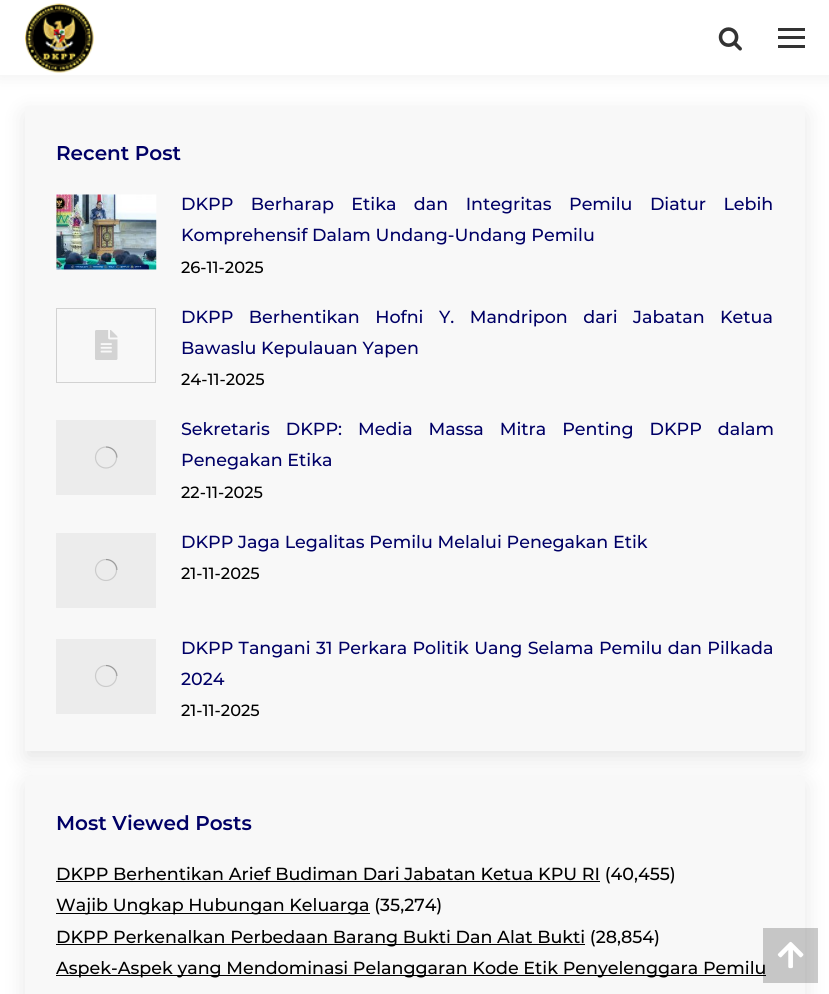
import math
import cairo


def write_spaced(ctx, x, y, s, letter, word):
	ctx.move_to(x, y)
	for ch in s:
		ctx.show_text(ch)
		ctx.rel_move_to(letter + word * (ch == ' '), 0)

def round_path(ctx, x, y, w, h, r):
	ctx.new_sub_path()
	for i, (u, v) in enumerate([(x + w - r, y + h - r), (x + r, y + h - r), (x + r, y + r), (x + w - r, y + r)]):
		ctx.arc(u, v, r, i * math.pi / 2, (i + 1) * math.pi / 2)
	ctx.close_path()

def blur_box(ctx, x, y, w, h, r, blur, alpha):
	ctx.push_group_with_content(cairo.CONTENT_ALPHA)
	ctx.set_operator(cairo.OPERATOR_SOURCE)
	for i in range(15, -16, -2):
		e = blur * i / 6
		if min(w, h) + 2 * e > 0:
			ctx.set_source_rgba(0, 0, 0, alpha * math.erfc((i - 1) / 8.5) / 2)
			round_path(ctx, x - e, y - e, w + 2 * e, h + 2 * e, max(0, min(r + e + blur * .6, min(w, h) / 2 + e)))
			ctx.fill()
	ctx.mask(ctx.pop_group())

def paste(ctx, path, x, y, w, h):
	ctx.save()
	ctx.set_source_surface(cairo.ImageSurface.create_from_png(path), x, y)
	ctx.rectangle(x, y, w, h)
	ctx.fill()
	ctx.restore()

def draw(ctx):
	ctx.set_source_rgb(1, 1, 1)
	ctx.paint()
	ctx.set_source_rgb(0, 0, 0)
	blur_box(ctx, -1, -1, 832, 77, 0, 9.5, 0.07)
	ctx.set_source_rgb(1, 1, 1)
	ctx.rectangle(0, 0, 829, 75)
	ctx.fill()
	paste(ctx, 'media/1.png', 25, 3, 69, 70)
	paste(ctx, 'media/2.png', 718, 27, 24, 24)
	ctx.set_source_rgb(0.2, 0.2, 0.2)
	ctx.rectangle(778, 36, 27, 3)
	ctx.rectangle(778, 28, 27, 3)
	ctx.rectangle(778, 45, 27, 3)
	ctx.fill()
	ctx.set_source_rgb(0, 0, 0)
	blur_box(ctx, 25, 114, 780, 645, 1, 11, 0.1)
	ctx.set_source_rgb(0.969, 0.969, 0.969)
	round_path(ctx, 25, 106, 780, 645, 1)
	ctx.fill()
	ctx.select_font_face('Montserrat SemiBold')
	ctx.set_font_size(20)
	ctx.set_source_rgb(0, 0, 0.4)
	ctx.move_to(56, 160)
	ctx.show_text('Recent Post')
	paste(ctx, 'media/3.png', 56, 194, 101, 76)
	ctx.select_font_face('Montserrat Medium')
	ctx.set_font_size(17.5)
	write_spaced(ctx, 181, 210, 'DKPP Berharap Etika dan Integritas Pemilu Diatur Lebih', 0, 12.75)
	ctx.move_to(181, 241)
	ctx.show_text('Komprehensif Dalam Undang-Undang Pemilu')
	ctx.set_font_size(16.25)
	ctx.set_source_rgb(0, 0, 0)
	ctx.move_to(181, 273)
	ctx.show_text('26-11-2025')
	ctx.rectangle(56.5, 308.5, 99, 74)
	ctx.set_source_rgb(0.824, 0.824, 0.824)
	ctx.set_line_width(1)
	ctx.stroke()
	paste(ctx, 'media/4.png', 95, 330, 23, 30)
	ctx.set_font_size(17.5)
	ctx.set_source_rgb(0, 0, 0.4)
	write_spaced(ctx, 181, 323, 'DKPP Berhentikan Hofni Y. Mandripon dari Jabatan Ketua', 0, 10.75)
	ctx.move_to(181, 354)
	ctx.show_text('Bawaslu Kepulauan Yapen')
	ctx.set_font_size(16.25)
	ctx.set_source_rgb(0, 0, 0)
	ctx.move_to(181, 385)
	ctx.show_text('24-11-2025')
	ctx.set_source_rgb(0.922, 0.922, 0.922)
	ctx.rectangle(56, 420, 100, 75)
	ctx.fill()
	ctx.arc(106, 457.5, 10.5, 0, 2 * math.pi)
	ctx.set_source_rgb(0.796, 0.796, 0.796)
	ctx.set_line_width(1.2)
	ctx.stroke()
	ctx.new_path()
	ctx.move_to(117, 457.5)
	ctx.curve_to(117, 451.5, 112, 447, 106, 447)
	ctx.set_source_rgba(0, 0, 0, 0.25)
	ctx.stroke()
	ctx.set_font_size(17.5)
	ctx.set_source_rgb(0, 0, 0.4)
	write_spaced(ctx, 181, 435, 'Sekretaris DKPP: Media Massa Mitra Penting DKPP dalam', 0, 11.25)
	ctx.move_to(181, 466)
	ctx.show_text('Penegakan Etika')
	ctx.set_font_size(16.25)
	ctx.set_source_rgb(0, 0, 0)
	ctx.move_to(181, 498)
	ctx.show_text('22-11-2025')
	ctx.set_source_rgb(0.922, 0.922, 0.922)
	ctx.rectangle(56, 533, 100, 75)
	ctx.fill()
	ctx.arc(106, 570, 10.5, 0, 2 * math.pi)
	ctx.set_source_rgb(0.796, 0.796, 0.796)
	ctx.stroke()
	ctx.new_path()
	ctx.move_to(117, 570)
	ctx.curve_to(117, 564, 112, 559.5, 106, 559.5)
	ctx.set_source_rgba(0, 0, 0, 0.25)
	ctx.stroke()
	ctx.set_font_size(17.5)
	ctx.set_source_rgb(0, 0, 0.4)
	ctx.move_to(181, 548)
	ctx.show_text('DKPP Jaga Legalitas Pemilu Melalui Penegakan Etik')
	ctx.set_font_size(16.25)
	ctx.set_source_rgb(0, 0, 0)
	ctx.move_to(181, 579)
	ctx.show_text('21-11-2025')
	ctx.set_source_rgb(0.922, 0.922, 0.922)
	ctx.rectangle(56, 639, 100, 75)
	ctx.fill()
	ctx.arc(106, 676, 10.5, 0, 2 * math.pi)
	ctx.set_source_rgb(0.796, 0.796, 0.796)
	ctx.stroke()
	ctx.new_path()
	ctx.move_to(117, 676)
	ctx.curve_to(117, 670.5, 112, 665.5, 106, 665.5)
	ctx.set_source_rgba(0, 0, 0, 0.25)
	ctx.stroke()
	ctx.set_font_size(17.5)
	ctx.set_source_rgb(0, 0, 0.4)
	write_spaced(ctx, 181, 654, 'DKPP Tangani 31 Perkara Politik Uang Selama Pemilu dan Pilkada', 0, 0.6)
	ctx.move_to(181, 685)
	ctx.show_text('2024')
	ctx.set_font_size(16.25)
	ctx.set_source_rgb(0, 0, 0)
	ctx.move_to(181, 716)
	ctx.show_text('21-11-2025')
	ctx.set_source_rgb(0, 0, 0)
	blur_box(ctx, 25, 784, 780, 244, 1, 11, 0.1)
	ctx.set_source_rgb(0.969, 0.969, 0.969)
	round_path(ctx, 25, 776, 780, 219, 1)
	ctx.fill()
	ctx.select_font_face('Montserrat SemiBold')
	ctx.set_font_size(20)
	ctx.set_source_rgb(0, 0, 0.4)
	ctx.move_to(56, 830)
	ctx.show_text('Most Viewed Posts')
	ctx.set_source_rgb(0, 0, 0)
	ctx.rectangle(56, 881, 544, 1)
	ctx.fill()
	ctx.select_font_face('Montserrat Medium')
	ctx.set_font_size(17.5)
	ctx.move_to(56, 880)
	ctx.show_text('DKPP Berhentikan Arief Budiman Dari Jabatan Ketua KPU RI (40,455)')
	ctx.rectangle(56, 913, 314, 1)
	ctx.fill()
	ctx.move_to(56, 911)
	ctx.show_text('Wajib Ungkap Hubungan Keluarga (35,274)')
	ctx.rectangle(56, 944, 529, 1)
	ctx.fill()
	ctx.move_to(56, 943)
	ctx.show_text('DKPP Perkenalkan Perbedaan Barang Bukti Dan Alat Bukti (28,854)')
	ctx.rectangle(56, 975, 710, 1)
	ctx.fill()
	ctx.move_to(56, 974)
	ctx.show_text('Aspek-Aspek yang Mendominasi Pelanggaran Kode Etik Penyelenggara Pemilu')
	ctx.set_source_rgba(0, 0, 0, 0.2)
	ctx.rectangle(763, 928, 55, 55)
	ctx.fill()
	paste(ctx, 'media/5.png', 777, 941, 27, 28)


surface = cairo.ImageSurface(cairo.FORMAT_RGB24, 829, 994)
ctx = cairo.Context(surface)
options = cairo.FontOptions()
options.set_hint_metrics(cairo.HINT_METRICS_OFF)
options.set_hint_style(cairo.HINT_STYLE_NONE)
ctx.set_font_options(options)
ctx.set_miter_limit(4)
draw(ctx)
surface.write_to_png('image.png')
